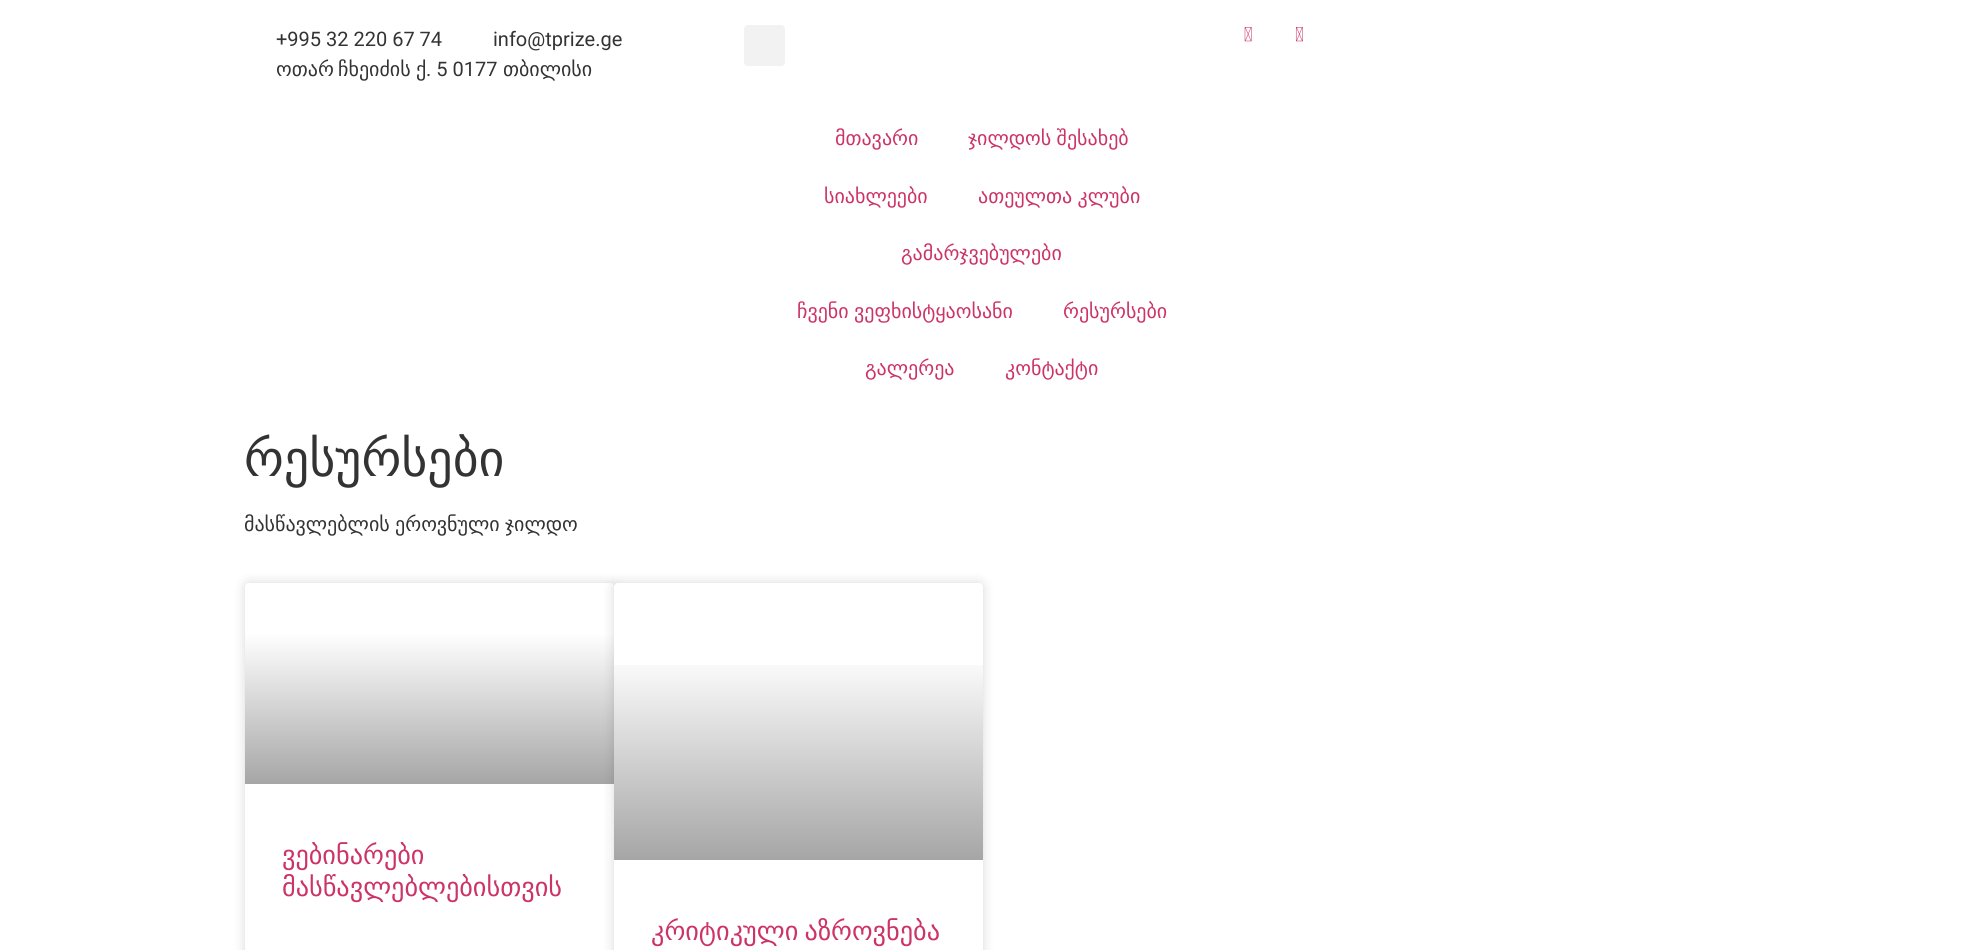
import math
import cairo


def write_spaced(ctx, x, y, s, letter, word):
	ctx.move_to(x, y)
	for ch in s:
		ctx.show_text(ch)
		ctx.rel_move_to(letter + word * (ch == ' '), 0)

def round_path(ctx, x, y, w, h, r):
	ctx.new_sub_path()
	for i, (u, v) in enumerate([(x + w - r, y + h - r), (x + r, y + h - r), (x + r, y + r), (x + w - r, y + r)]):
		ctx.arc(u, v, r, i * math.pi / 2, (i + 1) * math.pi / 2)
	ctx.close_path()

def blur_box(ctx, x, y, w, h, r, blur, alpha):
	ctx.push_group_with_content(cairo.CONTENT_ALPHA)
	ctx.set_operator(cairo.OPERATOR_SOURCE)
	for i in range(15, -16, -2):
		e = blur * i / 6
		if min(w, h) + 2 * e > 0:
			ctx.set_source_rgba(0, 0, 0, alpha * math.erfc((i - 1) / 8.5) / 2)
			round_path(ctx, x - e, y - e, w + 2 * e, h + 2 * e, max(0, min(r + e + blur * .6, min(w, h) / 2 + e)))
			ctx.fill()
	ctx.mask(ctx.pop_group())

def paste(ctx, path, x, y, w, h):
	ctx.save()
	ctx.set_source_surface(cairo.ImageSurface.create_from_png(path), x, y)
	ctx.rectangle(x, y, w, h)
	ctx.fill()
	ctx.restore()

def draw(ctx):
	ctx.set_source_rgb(1, 1, 1)
	ctx.paint()
	ctx.select_font_face('Roboto')
	ctx.set_font_size(20)
	ctx.set_source_rgb(0.2, 0.2, 0.2)
	ctx.move_to(276, 46)
	ctx.show_text('+995 32 220 67 74')
	ctx.move_to(493, 46)
	ctx.show_text('info@tprize.ge')
	ctx.select_font_face('DejaVu Sans')
	for x, y, s in [
		(276, 76, 'ოთარ'),
		(338, 76, 'ჩხეიძის'),
		(416, 76, 'ქ'),
	]:
		ctx.move_to(x, y)
		ctx.show_text(s)
	ctx.select_font_face('Roboto')
	ctx.move_to(426, 76)
	ctx.show_text('. 5 0177')
	ctx.select_font_face('DejaVu Sans')
	ctx.move_to(503, 76)
	ctx.show_text('თბილისი')
	ctx.set_source_rgb(0.949, 0.949, 0.949)
	round_path(ctx, 744, 25, 41, 41, 4)
	ctx.fill()
	paste(ctx, 'media/1.png', 1244, 27, 8, 15)
	paste(ctx, 'media/2.png', 1295, 27, 8, 15)
	ctx.set_source_rgb(0.8, 0.2, 0.4)
	ctx.move_to(835, 145)
	ctx.show_text('მთავარი')
	write_spaced(ctx, 968, 145, 'ჯილდოს შესახებ', 0, -1)
	ctx.move_to(824, 203)
	ctx.show_text('სიახლეები')
	write_spaced(ctx, 978, 203, 'ათეულთა კლუბი', 0, -1)
	ctx.move_to(901, 260)
	ctx.show_text('გამარჯვებულები')
	write_spaced(ctx, 797, 318, 'ჩვენი ვეფხისტყაოსანი', 0, -1)
	for x, y, s in [
		(1063, 318, 'რესურსები'),
		(865, 375, 'გალერეა'),
		(1005, 375, 'კონტაქტი'),
	]:
		ctx.move_to(x, y)
		ctx.show_text(s)
	ctx.set_font_size(50)
	ctx.set_source_rgb(0.2, 0.2, 0.2)
	ctx.move_to(244, 476)
	ctx.show_text('რესურსები')
	ctx.set_font_size(20)
	write_spaced(ctx, 244, 531, 'მასწავლებლის ეროვნული ჯილდო', 0, -1)
	ctx.set_source_rgb(0, 0, 0)
	blur_box(ctx, 245, 583, 369, 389, 4, 6, 0.15)
	ctx.set_source_rgb(1, 1, 1)
	round_path(ctx, 245, 583, 369, 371, 4)
	ctx.fill()
	gradient = cairo.LinearGradient(429, 784, 429, 583)
	gradient.add_color_stop_rgba(0, 0.651, 0.651, 0.651, 1)
	gradient.add_color_stop_rgba(0.75, 1, 1, 1, 1)
	ctx.set_source(gradient)
	ctx.new_path()
	ctx.move_to(249, 583)
	ctx.line_to(610, 583)
	ctx.curve_to(612, 583, 614, 585, 614, 587)
	ctx.line_to(614, 784)
	ctx.line_to(245, 784)
	ctx.line_to(245, 587)
	ctx.curve_to(245, 585, 247, 583, 249, 583)
	ctx.close_path()
	ctx.fill()
	ctx.set_font_size(26.25)
	ctx.set_source_rgb(0.8, 0.2, 0.4)
	ctx.move_to(282, 864)
	ctx.show_text('ვებინარები')
	ctx.move_to(282, 896)
	ctx.show_text('მასწავლებლებისთვის')
	ctx.set_source_rgb(0, 0, 0)
	blur_box(ctx, 614, 583, 369, 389, 4, 6, 0.15)
	ctx.set_source_rgb(1, 1, 1)
	round_path(ctx, 614, 583, 369, 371, 4)
	ctx.fill()
	gradient = cairo.LinearGradient(798, 860, 798, 583)
	gradient.add_color_stop_rgba(0, 0, 0, 0, 0.35)
	gradient.add_color_stop_rgba(0.75, 0, 0, 0, 0)
	ctx.set_source(gradient)
	ctx.rectangle(614, 665, 369, 195)
	ctx.fill()
	ctx.set_source_rgb(0.8, 0.2, 0.4)
	write_spaced(ctx, 651, 940, 'კრიტიკული აზროვნება', 0, -2)


surface = cairo.ImageSurface(cairo.FORMAT_RGB24, 1963, 950)
ctx = cairo.Context(surface)
options = cairo.FontOptions()
options.set_hint_metrics(cairo.HINT_METRICS_OFF)
options.set_hint_style(cairo.HINT_STYLE_NONE)
ctx.set_font_options(options)
ctx.set_miter_limit(4)
draw(ctx)
surface.write_to_png('image.png')
